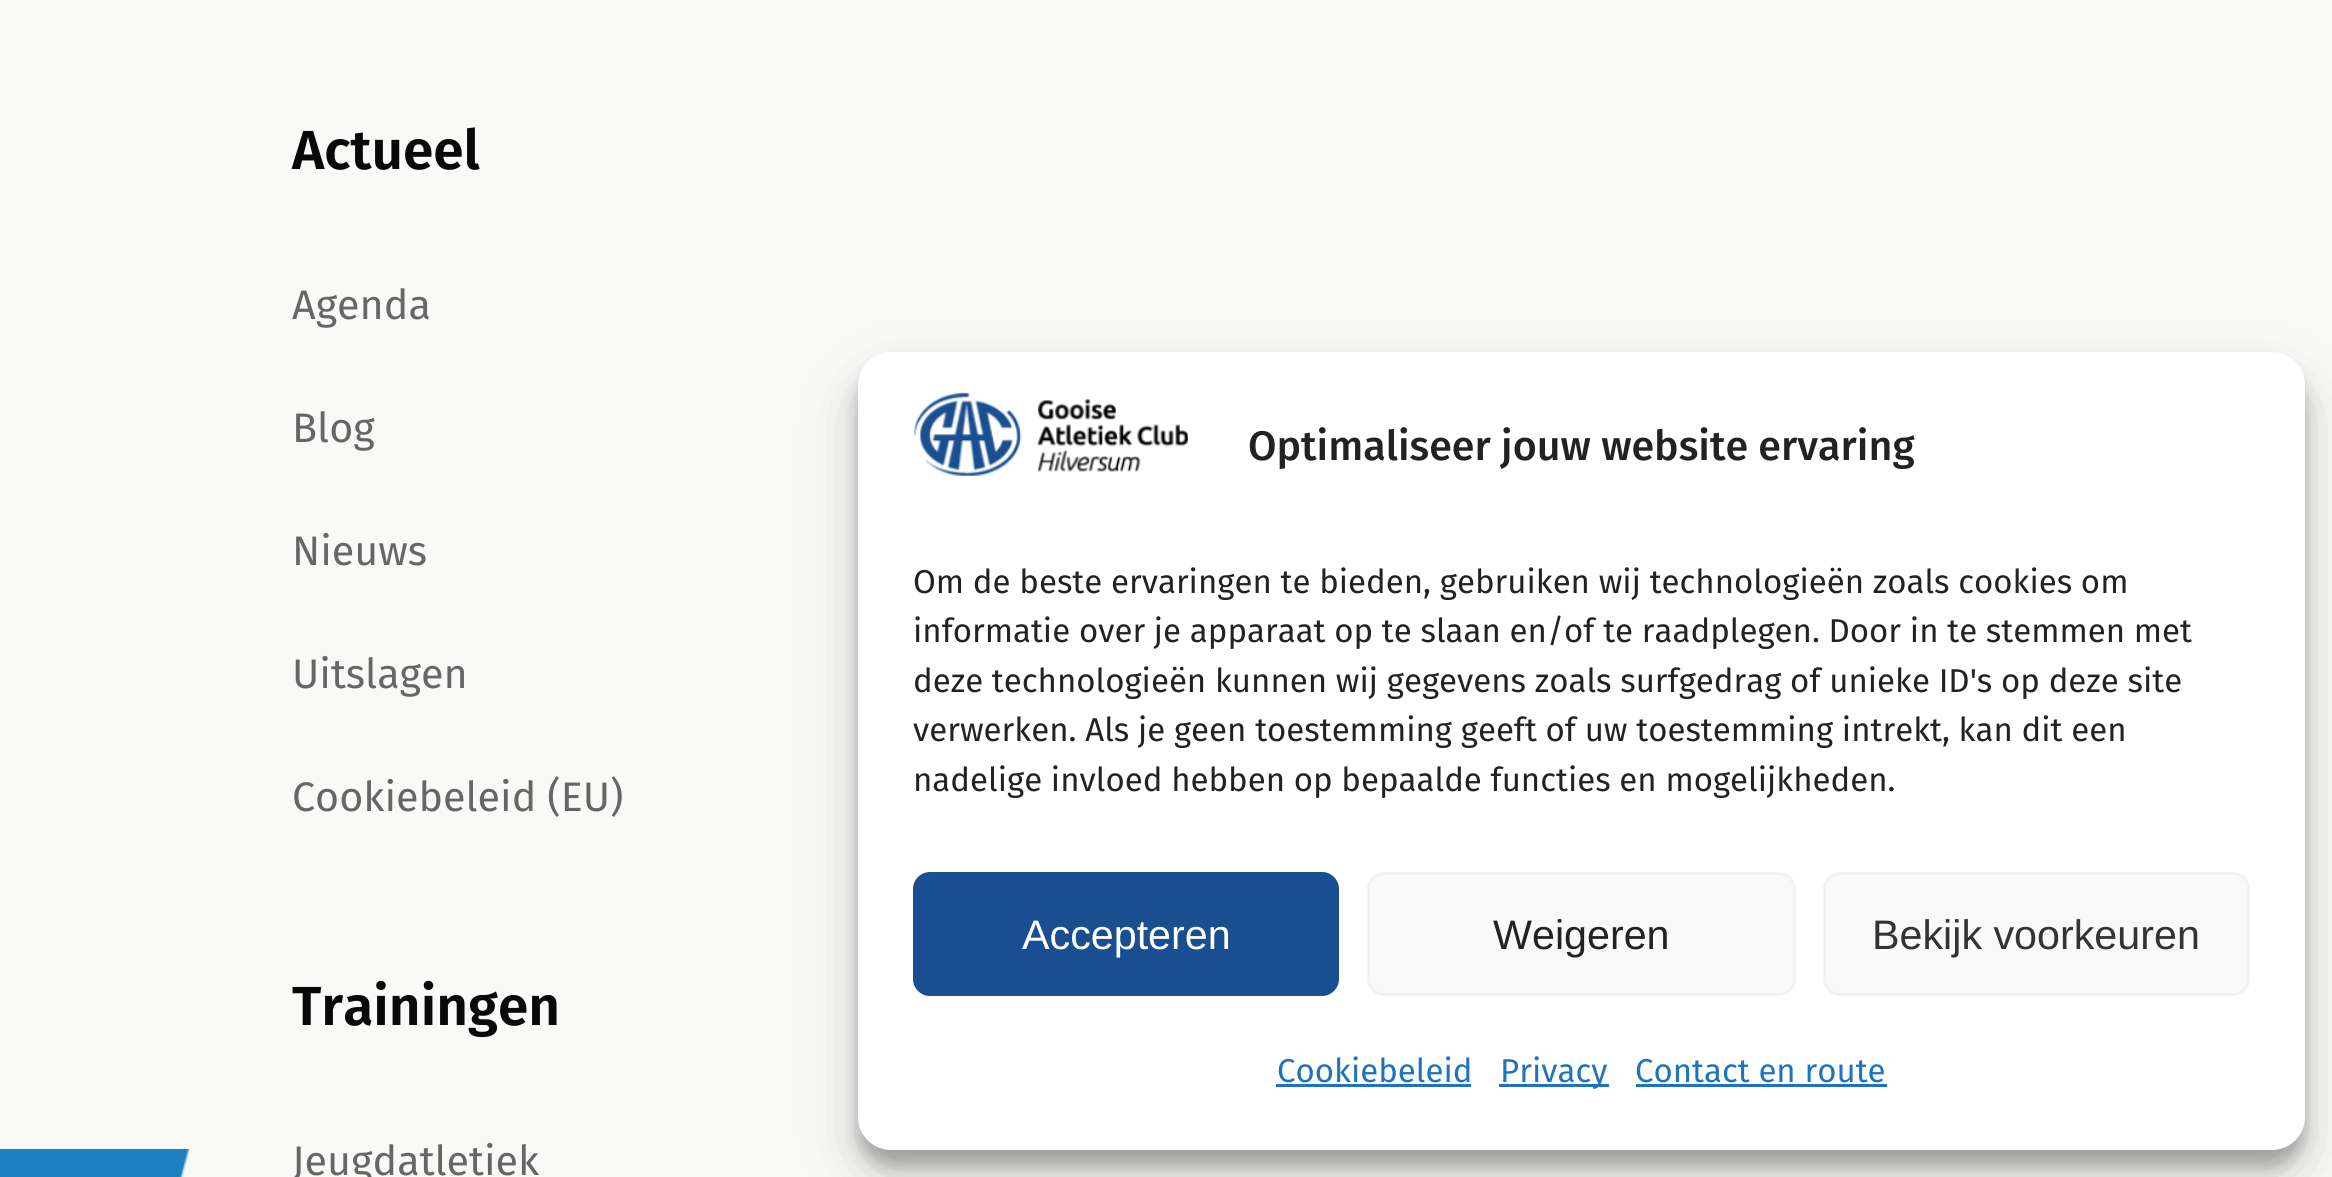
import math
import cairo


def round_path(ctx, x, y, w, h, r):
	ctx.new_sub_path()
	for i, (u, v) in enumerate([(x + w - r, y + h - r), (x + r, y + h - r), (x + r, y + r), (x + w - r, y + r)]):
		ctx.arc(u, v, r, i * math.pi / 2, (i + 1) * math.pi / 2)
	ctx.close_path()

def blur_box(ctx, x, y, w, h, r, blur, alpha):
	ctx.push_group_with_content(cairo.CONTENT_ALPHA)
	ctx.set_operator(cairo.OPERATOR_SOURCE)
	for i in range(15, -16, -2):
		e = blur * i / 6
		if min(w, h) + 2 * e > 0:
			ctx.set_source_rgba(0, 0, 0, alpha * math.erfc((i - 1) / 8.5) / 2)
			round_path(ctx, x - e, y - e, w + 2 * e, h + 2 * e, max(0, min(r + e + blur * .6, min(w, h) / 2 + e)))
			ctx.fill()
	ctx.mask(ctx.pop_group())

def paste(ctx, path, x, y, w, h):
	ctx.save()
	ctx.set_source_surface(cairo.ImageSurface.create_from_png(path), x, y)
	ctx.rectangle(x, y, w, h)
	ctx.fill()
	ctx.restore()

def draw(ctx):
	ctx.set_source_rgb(0.976, 0.973, 0.965)
	ctx.paint()
	paste(ctx, 'media/1.png', 0, 1149, 190, 28)
	ctx.select_font_face('Fira Sans SemiBold')
	ctx.set_font_size(55)
	ctx.set_source_rgb(0.039, 0.039, 0.039)
	ctx.move_to(292, 169)
	ctx.show_text('Actueel')
	ctx.select_font_face('Fira Sans')
	ctx.set_font_size(41.25)
	ctx.set_source_rgb(0.4, 0.4, 0.4)
	for x, y, s in [
		(292, 319, 'Agenda'),
		(292, 442, 'Blog'),
		(292, 565, 'Nieuws'),
		(292, 688, 'Uitslagen'),
		(292, 811, 'Cookiebeleid (EU)'),
	]:
		ctx.move_to(x, y)
		ctx.show_text(s)
	ctx.select_font_face('Fira Sans SemiBold')
	ctx.set_font_size(55)
	ctx.set_source_rgb(0.039, 0.039, 0.039)
	ctx.move_to(292, 1025)
	ctx.show_text('Trainingen')
	ctx.select_font_face('Fira Sans')
	ctx.set_font_size(41.25)
	ctx.set_source_rgb(0.4, 0.4, 0.4)
	ctx.move_to(292, 1175)
	ctx.show_text('Jeugdatletiek')
	ctx.set_source_rgb(0, 0, 0)
	blur_box(ctx, 858, 369, 1447, 797, 33, 8, 0.23)
	blur_box(ctx, 858, 380, 1447, 797, 33, 27.5, 0.19)
	ctx.set_source_rgb(1, 1, 1)
	round_path(ctx, 858, 352, 1447, 798, 33)
	ctx.fill()
	paste(ctx, 'media/2.png', 914, 392, 274, 84)
	ctx.select_font_face('Fira Sans Medium')
	ctx.set_source_rgb(0.133, 0.133, 0.133)
	ctx.move_to(1248, 460)
	ctx.show_text('Optimaliseer jouw website ervaring')
	ctx.select_font_face('Fira Sans')
	ctx.set_font_size(33)
	for x, y, s in [
		(913, 593, 'Om de beste ervaringen te bieden, gebruiken wij technologieën zoals cookies om'),
		(913, 642, 'informatie over je apparaat op te slaan en/of te raadplegen. Door in te stemmen met'),
		(913, 692, 'deze technologieën kunnen wij gegevens zoals surfgedrag of unieke ID\'s op deze site'),
		(913, 741, 'verwerken. Als je geen toestemming geeft of uw toestemming intrekt, kan dit een'),
		(913, 791, 'nadelige invloed hebben op bepaalde functies en mogelijkheden.'),
	]:
		ctx.move_to(x, y)
		ctx.show_text(s)
	ctx.set_source_rgb(0.098, 0.306, 0.565)
	round_path(ctx, 914.5, 873.5, 423, 121, 15.5)
	ctx.fill_preserve()
	ctx.set_line_width(3)
	ctx.stroke()
	ctx.select_font_face('Liberation Sans')
	ctx.set_font_size(41.25)
	ctx.set_source_rgb(1, 1, 1)
	ctx.move_to(1022, 949)
	ctx.show_text('Accepteren')
	ctx.set_source_rgb(0.976, 0.976, 0.976)
	round_path(ctx, 1368.5, 873.5, 426, 121, 15.5)
	ctx.fill_preserve()
	ctx.set_source_rgb(0.949, 0.949, 0.949)
	ctx.stroke()
	ctx.set_source_rgb(0.133, 0.133, 0.133)
	ctx.move_to(1493, 949)
	ctx.show_text('Weigeren')
	ctx.set_source_rgb(0.976, 0.976, 0.976)
	round_path(ctx, 1824.5, 873.5, 424, 121, 15.5)
	ctx.fill_preserve()
	ctx.set_source_rgb(0.949, 0.949, 0.949)
	ctx.stroke()
	ctx.set_source_rgb(0.2, 0.2, 0.2)
	ctx.move_to(1872, 949)
	ctx.show_text('Bekijk voorkeuren')
	ctx.select_font_face('Fira Sans')
	ctx.set_font_size(33)
	ctx.set_source_rgb(0.118, 0.451, 0.745)
	ctx.move_to(1277, 1082)
	ctx.show_text('Cookiebeleid')
	ctx.rectangle(1276, 1084, 195, 3)
	ctx.fill()
	ctx.rectangle(1499, 1084, 110, 3)
	ctx.fill()
	ctx.move_to(1500, 1082)
	ctx.show_text('Privacy')
	ctx.move_to(1635, 1082)
	ctx.show_text('Contact en route')
	ctx.rectangle(1636, 1084, 251, 3)
	ctx.fill()


surface = cairo.ImageSurface(cairo.FORMAT_RGB24, 2332, 1177)
ctx = cairo.Context(surface)
options = cairo.FontOptions()
options.set_hint_metrics(cairo.HINT_METRICS_OFF)
options.set_hint_style(cairo.HINT_STYLE_NONE)
ctx.set_font_options(options)
ctx.set_miter_limit(4)
draw(ctx)
surface.write_to_png('image.png')
